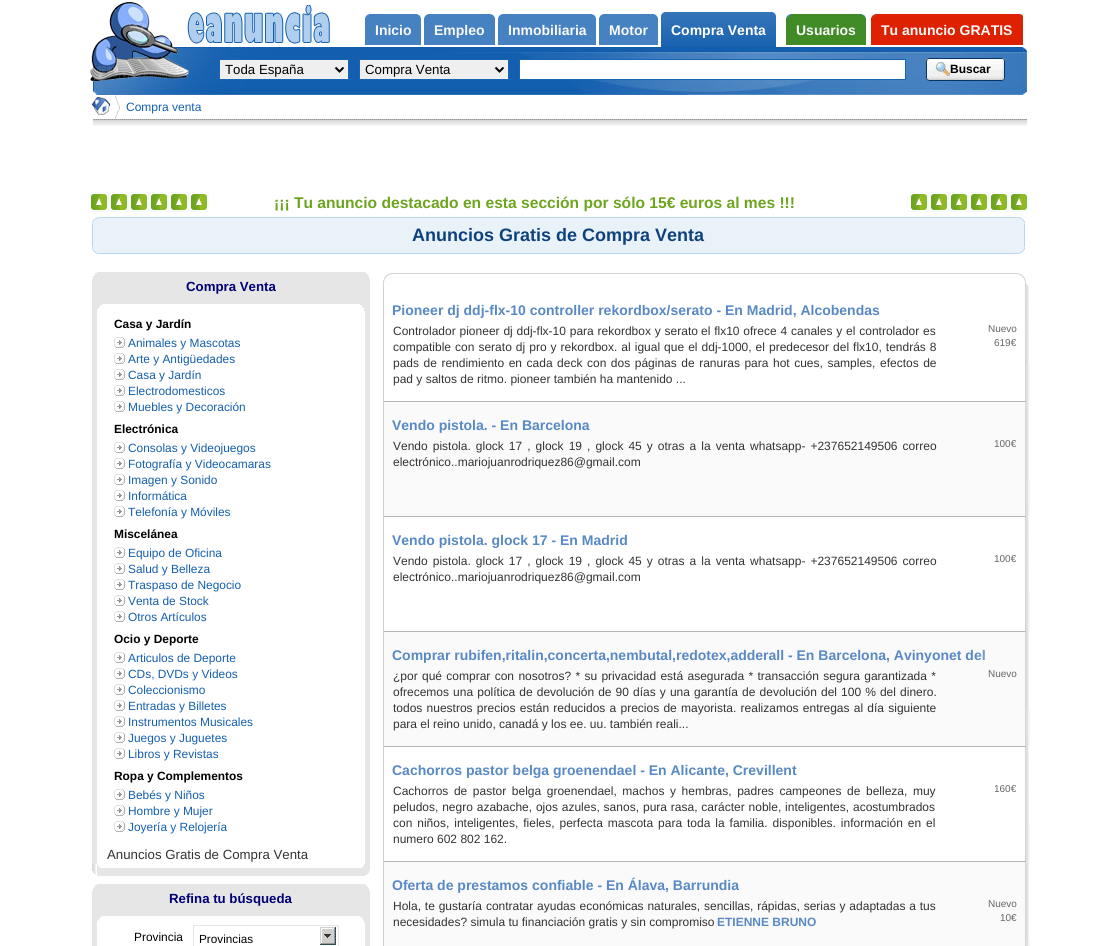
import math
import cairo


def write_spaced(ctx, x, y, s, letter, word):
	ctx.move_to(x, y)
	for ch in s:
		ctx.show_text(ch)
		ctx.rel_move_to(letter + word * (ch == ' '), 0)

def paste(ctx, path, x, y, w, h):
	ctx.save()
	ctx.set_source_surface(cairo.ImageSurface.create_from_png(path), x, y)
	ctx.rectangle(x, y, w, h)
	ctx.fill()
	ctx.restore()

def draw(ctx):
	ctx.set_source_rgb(1, 1, 1)
	ctx.paint()
	ctx.set_source_rgb(0.275, 0.51, 0.757)
	ctx.rectangle(365, 14, 56, 31)
	ctx.fill()
	paste(ctx, 'media/1.png', 365, 14, 4, 4)
	paste(ctx, 'media/2.png', 417, 14, 4, 4)
	ctx.select_font_face('Liberation Sans', cairo.FONT_SLANT_NORMAL, cairo.FONT_WEIGHT_BOLD)
	ctx.set_font_size(14)
	ctx.set_source_rgb(0.973, 0.973, 0.973)
	ctx.move_to(375, 35)
	ctx.show_text('Inicio')
	ctx.set_source_rgb(0.275, 0.51, 0.757)
	ctx.rectangle(424, 14, 71, 31)
	ctx.fill()
	paste(ctx, 'media/3.png', 424, 14, 5, 4)
	paste(ctx, 'media/4.png', 491, 14, 4, 4)
	ctx.set_source_rgb(0.973, 0.973, 0.973)
	ctx.move_to(434, 35)
	ctx.show_text('Empleo')
	ctx.set_source_rgb(0.275, 0.51, 0.757)
	ctx.rectangle(498, 14, 98, 31)
	ctx.fill()
	paste(ctx, 'media/1.png', 498, 14, 4, 4)
	paste(ctx, 'media/2.png', 592, 14, 4, 4)
	ctx.set_source_rgb(0.973, 0.973, 0.973)
	ctx.move_to(508, 35)
	ctx.show_text('Inmobiliaria')
	ctx.set_source_rgb(0.275, 0.51, 0.757)
	ctx.rectangle(599, 14, 59, 31)
	ctx.fill()
	paste(ctx, 'media/3.png', 599, 14, 5, 4)
	paste(ctx, 'media/4.png', 654, 14, 4, 4)
	ctx.set_source_rgb(0.973, 0.973, 0.973)
	ctx.move_to(609, 35)
	ctx.show_text('Motor')
	paste(ctx, 'media/5.png', 661, 12, 115, 35)
	paste(ctx, 'media/6.png', 661, 12, 4, 4)
	ctx.set_source_rgb(1, 1, 1)
	ctx.move_to(671, 35)
	ctx.show_text('Compra Venta')
	ctx.set_source_rgb(0.251, 0.545, 0.149)
	ctx.rectangle(786, 14, 80, 31)
	ctx.fill()
	paste(ctx, 'media/7.png', 786, 14, 6, 4)
	paste(ctx, 'media/8.png', 861, 14, 5, 4)
	ctx.set_source_rgb(0.973, 0.973, 0.973)
	ctx.move_to(796, 35)
	ctx.show_text('Usuarios')
	ctx.set_source_rgb(0.871, 0.129, 0)
	ctx.rectangle(871, 14, 152, 31)
	ctx.fill()
	paste(ctx, 'media/9.png', 871, 14, 5, 4)
	paste(ctx, 'media/10.png', 1019, 14, 4, 4)
	ctx.set_source_rgb(0.973, 0.973, 0.973)
	ctx.move_to(881, 35)
	ctx.show_text('Tu anuncio GRATIS')
	paste(ctx, 'media/11.png', 93, 47, 934, 48)
	paste(ctx, 'media/12.png', 90, 1, 99, 81)
	paste(ctx, 'media/13.png', 187, 5, 143, 39)
	ctx.set_source_rgb(0.937, 0.937, 0.937)
	ctx.rectangle(219.5, 59.5, 129, 20)
	ctx.fill_preserve()
	ctx.set_source_rgb(0.094, 0.396, 0.71)
	ctx.set_line_width(1)
	ctx.stroke()
	ctx.new_path()
	ctx.move_to(335.5, 67.5)
	ctx.line_to(339.5, 71.5)
	ctx.line_to(343.5, 67.5)
	ctx.set_source_rgb(0, 0, 0)
	ctx.set_line_width(2)
	ctx.stroke()
	ctx.select_font_face('Liberation Sans')
	ctx.set_font_size(13.25)
	ctx.move_to(225, 74)
	ctx.show_text('Toda España')
	ctx.set_source_rgb(0.937, 0.937, 0.937)
	ctx.rectangle(359.5, 59.5, 149, 20)
	ctx.fill_preserve()
	ctx.set_source_rgb(0.094, 0.396, 0.71)
	ctx.set_line_width(1)
	ctx.stroke()
	ctx.new_path()
	ctx.move_to(495.5, 67.5)
	ctx.line_to(499.5, 71.5)
	ctx.line_to(503.5, 67.5)
	ctx.set_source_rgb(0, 0, 0)
	ctx.set_line_width(2)
	ctx.stroke()
	ctx.move_to(365, 74)
	ctx.show_text('Compra Venta')
	ctx.set_source_rgb(1, 1, 1)
	ctx.rectangle(519.5, 59.5, 386, 20)
	ctx.fill_preserve()
	ctx.set_source_rgb(0.094, 0.396, 0.71)
	ctx.set_line_width(1)
	ctx.stroke()
	paste(ctx, 'media/14.png', 926, 58, 79, 23)
	ctx.select_font_face('Liberation Sans', cairo.FONT_SLANT_NORMAL, cairo.FONT_WEIGHT_BOLD)
	ctx.set_font_size(12)
	ctx.set_source_rgb(0, 0, 0)
	ctx.move_to(950, 73)
	ctx.show_text('Buscar')
	paste(ctx, 'media/15.png', 90, 192, 939, 20)
	ctx.set_font_size(15.6)
	ctx.set_source_rgb(0.427, 0.647, 0.122)
	ctx.move_to(274, 208)
	ctx.show_text('¡¡¡ Tu anuncio destacado en esta sección por sólo 15€ euros al mes !!!')
	paste(ctx, 'media/16.png', 115, 95, 5, 24)
	paste(ctx, 'media/17.png', 92, 97, 18, 18)
	ctx.select_font_face('Liberation Sans')
	ctx.set_font_size(12)
	ctx.set_source_rgb(0.075, 0.369, 0.682)
	ctx.move_to(126, 111)
	ctx.show_text('Compra venta')
	paste(ctx, 'media/18.png', 93, 119, 934, 7)
	ctx.set_source_rgb(0.914, 0.949, 0.976)
	ctx.rectangle(93, 218, 931, 35)
	ctx.fill()
	ctx.set_source_rgb(0.718, 0.839, 0.933)
	ctx.rectangle(1024, 217, 1, 34)
	ctx.rectangle(92, 217, 1, 34)
	ctx.fill()
	paste(ctx, 'media/19.png', 92, 217, 933, 7)
	ctx.select_font_face('Liberation Sans', cairo.FONT_SLANT_NORMAL, cairo.FONT_WEIGHT_BOLD)
	ctx.set_font_size(18)
	ctx.set_source_rgb(0.059, 0.259, 0.49)
	ctx.move_to(412, 241)
	ctx.show_text('Anuncios Gratis de Compra Venta')
	paste(ctx, 'media/20.png', 92, 247, 933, 7)
	ctx.set_source_rgb(0.902, 0.902, 0.902)
	ctx.rectangle(92, 272, 270, 604)
	ctx.fill()
	paste(ctx, 'media/21.png', 92, 272, 268, 603)
	ctx.set_font_size(13.25)
	ctx.set_source_rgb(0, 0, 0.467)
	ctx.move_to(186, 291)
	ctx.show_text('Compra Venta')
	ctx.set_source_rgb(1, 1, 1)
	ctx.rectangle(97, 309, 265, 555)
	ctx.fill()
	ctx.set_source_rgb(0.902, 0.902, 0.902)
	ctx.rectangle(365, 309, 5, 555)
	ctx.rectangle(360, 272, 10, 39)
	ctx.fill()
	paste(ctx, 'media/22.png', 360, 272, 10, 39)
	ctx.rectangle(92, 344, 5, 520)
	ctx.fill()
	ctx.set_font_size(11.9)
	ctx.set_source_rgb(0, 0, 0)
	ctx.move_to(114, 328)
	ctx.show_text('Casa y Jardín')
	paste(ctx, 'media/23.png', 114, 337, 11, 11)
	ctx.select_font_face('Liberation Sans')
	ctx.set_source_rgb(0.075, 0.369, 0.682)
	ctx.move_to(128, 347)
	ctx.show_text('Animales y Mascotas')
	paste(ctx, 'media/23.png', 114, 353, 11, 11)
	ctx.move_to(128, 363)
	ctx.show_text('Arte y Antigüedades')
	paste(ctx, 'media/23.png', 114, 369, 11, 11)
	ctx.move_to(128, 379)
	ctx.show_text('Casa y Jardín')
	paste(ctx, 'media/23.png', 114, 385, 11, 11)
	ctx.move_to(128, 395)
	ctx.show_text('Electrodomesticos')
	paste(ctx, 'media/23.png', 114, 401, 11, 11)
	ctx.move_to(128, 411)
	ctx.show_text('Muebles y Decoración')
	ctx.select_font_face('Liberation Sans', cairo.FONT_SLANT_NORMAL, cairo.FONT_WEIGHT_BOLD)
	ctx.set_source_rgb(0, 0, 0)
	ctx.move_to(114, 433)
	ctx.show_text('Electrónica')
	paste(ctx, 'media/23.png', 114, 442, 11, 11)
	ctx.select_font_face('Liberation Sans')
	ctx.set_source_rgb(0.075, 0.369, 0.682)
	ctx.move_to(128, 452)
	ctx.show_text('Consolas y Videojuegos')
	paste(ctx, 'media/23.png', 114, 458, 11, 11)
	ctx.move_to(128, 468)
	ctx.show_text('Fotografía y Videocamaras')
	paste(ctx, 'media/23.png', 114, 474, 11, 11)
	ctx.move_to(128, 484)
	ctx.show_text('Imagen y Sonido')
	paste(ctx, 'media/23.png', 114, 490, 11, 11)
	ctx.move_to(128, 500)
	ctx.show_text('Informática')
	paste(ctx, 'media/23.png', 114, 506, 11, 11)
	ctx.move_to(128, 516)
	ctx.show_text('Telefonía y Móviles')
	ctx.select_font_face('Liberation Sans', cairo.FONT_SLANT_NORMAL, cairo.FONT_WEIGHT_BOLD)
	ctx.set_source_rgb(0, 0, 0)
	ctx.move_to(114, 538)
	ctx.show_text('Miscelánea')
	paste(ctx, 'media/23.png', 114, 547, 11, 11)
	ctx.select_font_face('Liberation Sans')
	ctx.set_source_rgb(0.075, 0.369, 0.682)
	ctx.move_to(128, 557)
	ctx.show_text('Equipo de Oficina')
	paste(ctx, 'media/23.png', 114, 563, 11, 11)
	ctx.move_to(128, 573)
	ctx.show_text('Salud y Belleza')
	paste(ctx, 'media/23.png', 114, 579, 11, 11)
	ctx.move_to(128, 589)
	ctx.show_text('Traspaso de Negocio')
	paste(ctx, 'media/23.png', 114, 595, 11, 11)
	ctx.move_to(128, 605)
	ctx.show_text('Venta de Stock')
	paste(ctx, 'media/23.png', 114, 611, 11, 11)
	ctx.move_to(128, 621)
	ctx.show_text('Otros Artículos')
	ctx.select_font_face('Liberation Sans', cairo.FONT_SLANT_NORMAL, cairo.FONT_WEIGHT_BOLD)
	ctx.set_source_rgb(0, 0, 0)
	ctx.move_to(114, 643)
	ctx.show_text('Ocio y Deporte')
	paste(ctx, 'media/23.png', 114, 652, 11, 11)
	ctx.select_font_face('Liberation Sans')
	ctx.set_source_rgb(0.075, 0.369, 0.682)
	ctx.move_to(128, 662)
	ctx.show_text('Articulos de Deporte')
	paste(ctx, 'media/23.png', 114, 668, 11, 11)
	ctx.move_to(128, 678)
	ctx.show_text('CDs, DVDs y Videos')
	paste(ctx, 'media/23.png', 114, 684, 11, 11)
	ctx.move_to(128, 694)
	ctx.show_text('Coleccionismo')
	paste(ctx, 'media/23.png', 114, 700, 11, 11)
	ctx.move_to(128, 710)
	ctx.show_text('Entradas y Billetes')
	paste(ctx, 'media/23.png', 114, 716, 11, 11)
	ctx.move_to(128, 726)
	ctx.show_text('Instrumentos Musicales')
	paste(ctx, 'media/23.png', 114, 732, 11, 11)
	ctx.move_to(128, 742)
	ctx.show_text('Juegos y Juguetes')
	paste(ctx, 'media/23.png', 114, 748, 11, 11)
	ctx.move_to(128, 758)
	ctx.show_text('Libros y Revistas')
	ctx.select_font_face('Liberation Sans', cairo.FONT_SLANT_NORMAL, cairo.FONT_WEIGHT_BOLD)
	ctx.set_source_rgb(0, 0, 0)
	ctx.move_to(114, 780)
	ctx.show_text('Ropa y Complementos')
	paste(ctx, 'media/23.png', 114, 789, 11, 11)
	ctx.select_font_face('Liberation Sans')
	ctx.set_source_rgb(0.075, 0.369, 0.682)
	ctx.move_to(128, 799)
	ctx.show_text('Bebés y Niños')
	paste(ctx, 'media/23.png', 114, 805, 11, 11)
	ctx.move_to(128, 815)
	ctx.show_text('Hombre y Mujer')
	paste(ctx, 'media/23.png', 114, 821, 11, 11)
	ctx.move_to(128, 831)
	ctx.show_text('Joyería y Relojería')
	ctx.set_font_size(13.25)
	ctx.set_source_rgb(0.2, 0.2, 0.2)
	ctx.move_to(107, 859)
	ctx.show_text('Anuncios Gratis de Compra Venta')
	paste(ctx, 'media/24.png', 92, 864, 270, 12)
	ctx.set_source_rgb(0.902, 0.902, 0.902)
	ctx.rectangle(362, 864, 8, 12)
	ctx.fill()
	paste(ctx, 'media/25.png', 362, 864, 8, 12)
	ctx.rectangle(92, 884, 268, 37)
	ctx.fill()
	paste(ctx, 'media/26.png', 92, 884, 268, 37)
	ctx.select_font_face('Liberation Sans', cairo.FONT_SLANT_NORMAL, cairo.FONT_WEIGHT_BOLD)
	ctx.set_source_rgb(0, 0, 0.467)
	ctx.move_to(169, 903)
	ctx.show_text('Refina tu búsqueda')
	ctx.set_source_rgb(0.902, 0.902, 0.902)
	ctx.rectangle(360, 884, 10, 39)
	ctx.fill()
	paste(ctx, 'media/22.png', 360, 884, 10, 39)
	ctx.rectangle(92, 921, 5, 25)
	ctx.fill()
	ctx.rectangle(365, 923, 5, 23)
	ctx.fill()
	ctx.select_font_face('Liberation Sans')
	ctx.set_font_size(11.9)
	ctx.set_source_rgb(0, 0, 0)
	ctx.move_to(134, 941)
	ctx.show_text('Provincia')
	paste(ctx, 'media/27.png', 320, 927, 16, 18)
	ctx.rectangle(193.5, 925.5, 145, 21)
	ctx.set_source_rgb(0.902, 0.902, 0.902)
	ctx.stroke()
	ctx.set_font_size(11.75)
	ctx.set_source_rgb(0, 0, 0)
	ctx.move_to(199, 943)
	ctx.show_text('Provincias')
	paste(ctx, 'media/28.png', 383, 273, 646, 15)
	paste(ctx, 'media/29.png', 1025, 288, 4, 30)
	ctx.set_source_rgb(0.82, 0.812, 0.784)
	ctx.rectangle(383, 287, 1, 659)
	ctx.fill()
	ctx.select_font_face('Liberation Sans', cairo.FONT_SLANT_NORMAL, cairo.FONT_WEIGHT_BOLD)
	ctx.set_font_size(14)
	ctx.set_source_rgb(0.345, 0.537, 0.773)
	ctx.move_to(392, 315)
	ctx.show_text('Pioneer dj ddj-flx-10 controller rekordbox/serato - En Madrid, Alcobendas')
	paste(ctx, 'media/30.png', 1025, 318, 5, 84)
	ctx.set_source_rgb(0.71, 0.71, 0.71)
	ctx.rectangle(384, 401, 642, 1)
	ctx.fill()
	ctx.select_font_face('Liberation Sans')
	ctx.set_font_size(12)
	ctx.set_source_rgb(0.2, 0.2, 0.2)
	write_spaced(ctx, 393, 335, 'Controlador pioneer dj ddj-flx-10 para rekordbox y serato', 0, 0.5)
	write_spaced(ctx, 701, 335, 'el flx10 ofrece 4 canales y el controlador es', 0, 0.5)
	write_spaced(ctx, 393, 351, 'compatible con serato dj pro y rekordbox. al igual que el ddj-1000, el predecesor del flx10, tendrás 8', 0, 0.7)
	write_spaced(ctx, 393, 367, 'pads de rendimiento en cada deck con dos páginas de ranuras para hot cues, samples, efectos de', 0, 1.2)
	ctx.move_to(393, 383)
	ctx.show_text('pad y saltos de ritmo. pioneer también ha mantenido ...')
	ctx.set_font_size(10)
	ctx.set_source_rgb(0.4, 0.4, 0.4)
	ctx.move_to(988, 332)
	ctx.show_text('Nuevo')
	ctx.move_to(994, 346)
	ctx.show_text('619€')
	ctx.set_source_rgb(0.98, 0.98, 0.98)
	ctx.rectangle(384, 402, 641, 114)
	ctx.fill()
	paste(ctx, 'media/31.png', 1025, 402, 5, 31)
	ctx.select_font_face('Liberation Sans', cairo.FONT_SLANT_NORMAL, cairo.FONT_WEIGHT_BOLD)
	ctx.set_font_size(14)
	ctx.set_source_rgb(0.345, 0.537, 0.773)
	ctx.move_to(392, 430)
	ctx.show_text('Vendo pistola. - En Barcelona')
	paste(ctx, 'media/30.png', 1025, 433, 5, 84)
	ctx.set_source_rgb(0.71, 0.71, 0.71)
	ctx.rectangle(384, 516, 642, 1)
	ctx.fill()
	ctx.select_font_face('Liberation Sans')
	ctx.set_font_size(12)
	ctx.set_source_rgb(0.2, 0.2, 0.2)
	write_spaced(ctx, 393, 450, 'Vendo pistola. glock 17 , glock 19 , glock 45 y otras a la venta whatsapp- +237652149506 correo', 0, 1.7)
	ctx.move_to(393, 466)
	ctx.show_text('electrónico..mariojuanrodriquez86@gmail.com')
	ctx.set_font_size(10)
	ctx.set_source_rgb(0.4, 0.4, 0.4)
	ctx.move_to(994, 447)
	ctx.show_text('100€')
	paste(ctx, 'media/32.png', 1025, 517, 4, 31)
	ctx.select_font_face('Liberation Sans', cairo.FONT_SLANT_NORMAL, cairo.FONT_WEIGHT_BOLD)
	ctx.set_font_size(14)
	ctx.set_source_rgb(0.345, 0.537, 0.773)
	ctx.move_to(392, 545)
	ctx.show_text('Vendo pistola. glock 17 - En Madrid')
	paste(ctx, 'media/30.png', 1025, 548, 5, 84)
	ctx.set_source_rgb(0.71, 0.71, 0.71)
	ctx.rectangle(384, 631, 642, 1)
	ctx.fill()
	ctx.select_font_face('Liberation Sans')
	ctx.set_font_size(12)
	ctx.set_source_rgb(0.2, 0.2, 0.2)
	write_spaced(ctx, 393, 565, 'Vendo pistola. glock 17 , glock 19 , glock 45 y otras a la venta whatsapp- +237652149506 correo', 0, 1.7)
	ctx.move_to(393, 581)
	ctx.show_text('electrónico..mariojuanrodriquez86@gmail.com')
	ctx.set_font_size(10)
	ctx.set_source_rgb(0.4, 0.4, 0.4)
	ctx.move_to(994, 562)
	ctx.show_text('100€')
	ctx.set_source_rgb(0.98, 0.98, 0.98)
	ctx.rectangle(384, 632, 641, 114)
	ctx.fill()
	paste(ctx, 'media/31.png', 1025, 632, 5, 31)
	ctx.select_font_face('Liberation Sans', cairo.FONT_SLANT_NORMAL, cairo.FONT_WEIGHT_BOLD)
	ctx.set_font_size(14)
	ctx.set_source_rgb(0.345, 0.537, 0.773)
	ctx.move_to(392, 660)
	ctx.show_text('Comprar rubifen,ritalin,concerta,nembutal,redotex,adderall - En Barcelona, Avinyonet del')
	paste(ctx, 'media/33.png', 977, 650, 7, 10)
	paste(ctx, 'media/30.png', 1025, 663, 5, 84)
	ctx.set_source_rgb(0.71, 0.71, 0.71)
	ctx.rectangle(384, 746, 642, 1)
	ctx.fill()
	ctx.select_font_face('Liberation Sans')
	ctx.set_font_size(12)
	ctx.set_source_rgb(0.2, 0.2, 0.2)
	write_spaced(ctx, 393, 680, '¿por qué comprar con nosotros? * su privacidad está asegurada * transacción segura garantizada *', 0, 1)
	write_spaced(ctx, 393, 696, 'ofrecemos una política de devolución de 90 días y una garantía de devolución del 100 % del dinero.', 0, 0.75)
	write_spaced(ctx, 393, 712, 'todos nuestros precios están reducidos a precios de mayorista. realizamos entregas al día siguiente', 0, 0.9)
	ctx.move_to(393, 728)
	ctx.show_text('para el reino unido, canadá y los ee. uu. también reali...')
	ctx.set_font_size(10)
	ctx.set_source_rgb(0.4, 0.4, 0.4)
	ctx.move_to(988, 677)
	ctx.show_text('Nuevo')
	paste(ctx, 'media/32.png', 1025, 747, 4, 31)
	ctx.select_font_face('Liberation Sans', cairo.FONT_SLANT_NORMAL, cairo.FONT_WEIGHT_BOLD)
	ctx.set_font_size(14)
	ctx.set_source_rgb(0.345, 0.537, 0.773)
	ctx.move_to(392, 775)
	ctx.show_text('Cachorros pastor belga groenendael - En Alicante, Crevillent')
	paste(ctx, 'media/30.png', 1025, 778, 5, 84)
	ctx.set_source_rgb(0.71, 0.71, 0.71)
	ctx.rectangle(384, 861, 642, 1)
	ctx.fill()
	ctx.select_font_face('Liberation Sans')
	ctx.set_font_size(12)
	ctx.set_source_rgb(0.2, 0.2, 0.2)
	write_spaced(ctx, 393, 795, 'Cachorros de pastor belga groenendael, machos y hembras, padres campeones de belleza, muy', 0, 2.25)
	write_spaced(ctx, 393, 811, 'peludos, negro azabache, ojos azules, sanos,', 0, 0.5)
	write_spaced(ctx, 643, 811, 'pura rasa, carácter noble, inteligentes,', 0, 0.5)
	ctx.move_to(853, 811)
	ctx.show_text('acostumbrados')
	write_spaced(ctx, 393, 827, 'con niños, inteligentes, fieles, perfecta mascota para toda la familia. disponibles. información en el', 0, 1.6)
	ctx.move_to(393, 843)
	ctx.show_text('numero 602 802 162.')
	ctx.set_font_size(10)
	ctx.set_source_rgb(0.4, 0.4, 0.4)
	ctx.move_to(994, 792)
	ctx.show_text('160€')
	ctx.set_source_rgb(0.98, 0.98, 0.98)
	ctx.rectangle(384, 862, 641, 84)
	ctx.fill()
	paste(ctx, 'media/31.png', 1025, 862, 5, 31)
	ctx.select_font_face('Liberation Sans', cairo.FONT_SLANT_NORMAL, cairo.FONT_WEIGHT_BOLD)
	ctx.set_font_size(14)
	ctx.set_source_rgb(0.345, 0.537, 0.773)
	ctx.move_to(392, 890)
	ctx.show_text('Oferta de prestamos confiable - En Álava, Barrundia')
	paste(ctx, 'media/34.png', 1025, 893, 5, 53)
	ctx.select_font_face('Liberation Sans')
	ctx.set_font_size(12)
	ctx.set_source_rgb(0.2, 0.2, 0.2)
	write_spaced(ctx, 393, 910, 'Hola, te gustaría contratar ayudas económicas naturales, sencillas, rápidas, serias y adaptadas a tus', 0, 0.5)
	ctx.move_to(393, 926)
	ctx.show_text('necesidades? simula tu financiación gratis y sin compromiso')
	ctx.select_font_face('Liberation Sans', cairo.FONT_SLANT_NORMAL, cairo.FONT_WEIGHT_BOLD)
	ctx.set_source_rgb(0.345, 0.537, 0.773)
	ctx.move_to(717, 926)
	ctx.show_text('ETIENNE BRUNO')
	ctx.select_font_face('Liberation Sans')
	ctx.set_font_size(10)
	ctx.set_source_rgb(0.4, 0.4, 0.4)
	ctx.move_to(988, 907)
	ctx.show_text('Nuevo')
	ctx.move_to(1000, 921)
	ctx.show_text('10€')


surface = cairo.ImageSurface(cairo.FORMAT_RGB24, 1117, 946)
ctx = cairo.Context(surface)
options = cairo.FontOptions()
options.set_hint_metrics(cairo.HINT_METRICS_OFF)
options.set_hint_style(cairo.HINT_STYLE_NONE)
ctx.set_font_options(options)
ctx.set_miter_limit(4)
draw(ctx)
surface.write_to_png('image.png')
